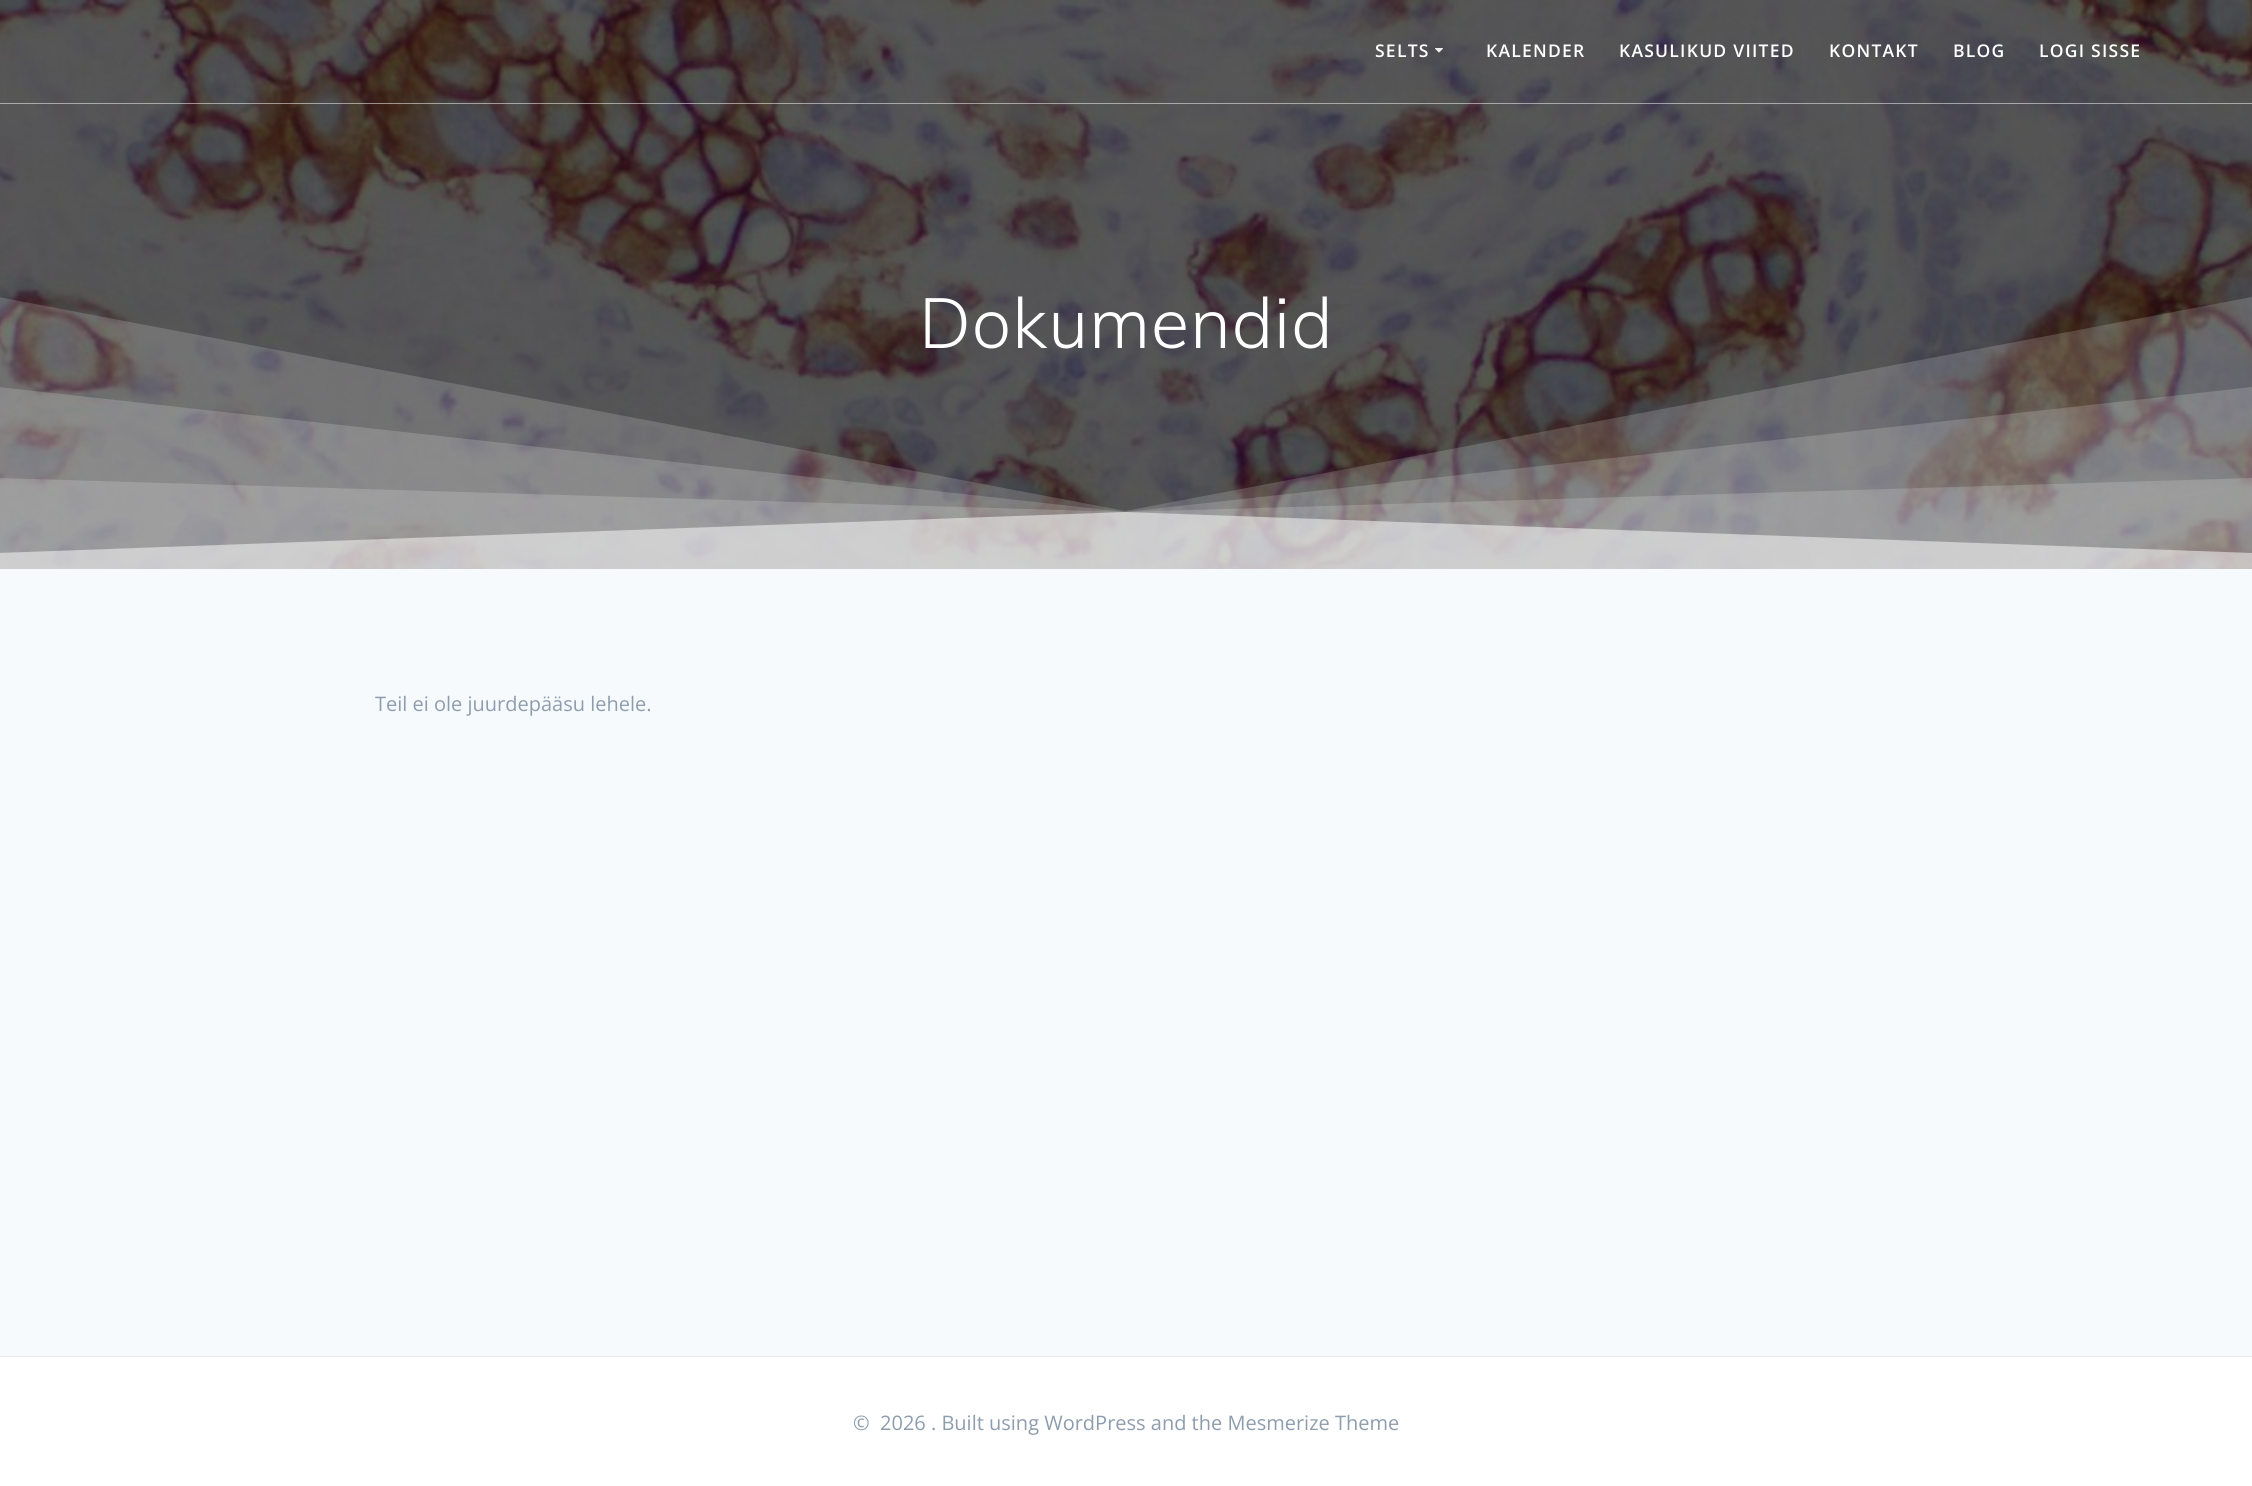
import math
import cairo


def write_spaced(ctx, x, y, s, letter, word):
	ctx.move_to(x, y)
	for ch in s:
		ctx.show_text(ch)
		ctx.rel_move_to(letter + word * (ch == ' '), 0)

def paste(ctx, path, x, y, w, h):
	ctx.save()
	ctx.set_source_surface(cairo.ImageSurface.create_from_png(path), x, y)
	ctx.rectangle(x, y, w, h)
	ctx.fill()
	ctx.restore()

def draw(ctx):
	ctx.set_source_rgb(1, 1, 1)
	ctx.paint()
	paste(ctx, 'media/2.png', 0, 0, 2252, 569)
	ctx.set_source_rgba(1, 1, 1, 0.5)
	ctx.rectangle(0, 103, 2252, 1)
	ctx.fill()
	ctx.select_font_face('Open Sans SemiBold')
	ctx.set_font_size(17.5)
	ctx.set_source_rgb(1, 1, 1)
	write_spaced(ctx, 1375, 57, 'SELTS', 1.25, 0)
	paste(ctx, 'media/1.png', 1435, 48, 8, 5)
	for x, y, s in [
		(1486, 57, 'KALENDER'),
		(1619, 57, 'KASULIKUD VIITED'),
		(1829, 57, 'KONTAKT'),
		(1953, 57, 'BLOG'),
		(2039, 57, 'LOGI SISSE'),
	]:
		write_spaced(ctx, x, y, s, 1.25, 0)
	paste(ctx, 'media/3.png', 1236, 304, 176, 265)
	ctx.set_source_rgba(1, 1, 1, 0.17)
	ctx.new_path()
	ctx.move_to(2252, 571)
	ctx.line_to(2252, 297)
	ctx.line_to(1125, 511)
	ctx.line_to(-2, 297)
	ctx.line_to(-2, 571)
	ctx.close_path()
	ctx.fill()
	ctx.select_font_face('Muli Light')
	ctx.set_font_size(70)
	ctx.set_source_rgb(1, 1, 1)
	write_spaced(ctx, 919, 348, 'Dokumendid', 1.1, 0)
	ctx.set_source_rgba(1, 1, 1, 0.17)
	ctx.new_path()
	ctx.move_to(2252, 571)
	ctx.line_to(2252, 387)
	ctx.line_to(1125, 512)
	ctx.line_to(-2, 387)
	ctx.line_to(-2, 571)
	ctx.close_path()
	ctx.fill()
	ctx.new_path()
	ctx.move_to(2252, 571)
	ctx.line_to(2252, 478)
	ctx.line_to(1125, 512)
	ctx.line_to(-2, 478)
	ctx.line_to(-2, 571)
	ctx.close_path()
	ctx.fill()
	ctx.set_source_rgba(1, 1, 1, 0.5)
	ctx.new_path()
	ctx.move_to(2252, 571)
	ctx.line_to(2252, 553)
	ctx.line_to(1125, 512)
	ctx.line_to(-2, 553)
	ctx.line_to(-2, 571)
	ctx.close_path()
	ctx.fill()
	ctx.set_source_rgb(0.961, 0.98, 0.992)
	ctx.rectangle(0, 569, 2252, 787)
	ctx.fill()
	ctx.select_font_face('Open Sans')
	ctx.set_font_size(20)
	ctx.set_source_rgb(0.557, 0.616, 0.682)
	ctx.move_to(375, 711)
	ctx.show_text('Teil ei ole juurdepääsu lehele.')
	ctx.set_source_rgb(0.91, 0.91, 0.91)
	ctx.rectangle(0, 1356, 2252, 1)
	ctx.fill()
	ctx.set_source_rgb(0.557, 0.616, 0.682)
	ctx.move_to(853, 1430)
	ctx.show_text('©  2026 . Built using WordPress and the Mesmerize Theme')


surface = cairo.ImageSurface(cairo.FORMAT_RGB24, 2252, 1486)
ctx = cairo.Context(surface)
options = cairo.FontOptions()
options.set_hint_metrics(cairo.HINT_METRICS_OFF)
options.set_hint_style(cairo.HINT_STYLE_NONE)
ctx.set_font_options(options)
ctx.set_miter_limit(4)
draw(ctx)
surface.write_to_png('image.png')
